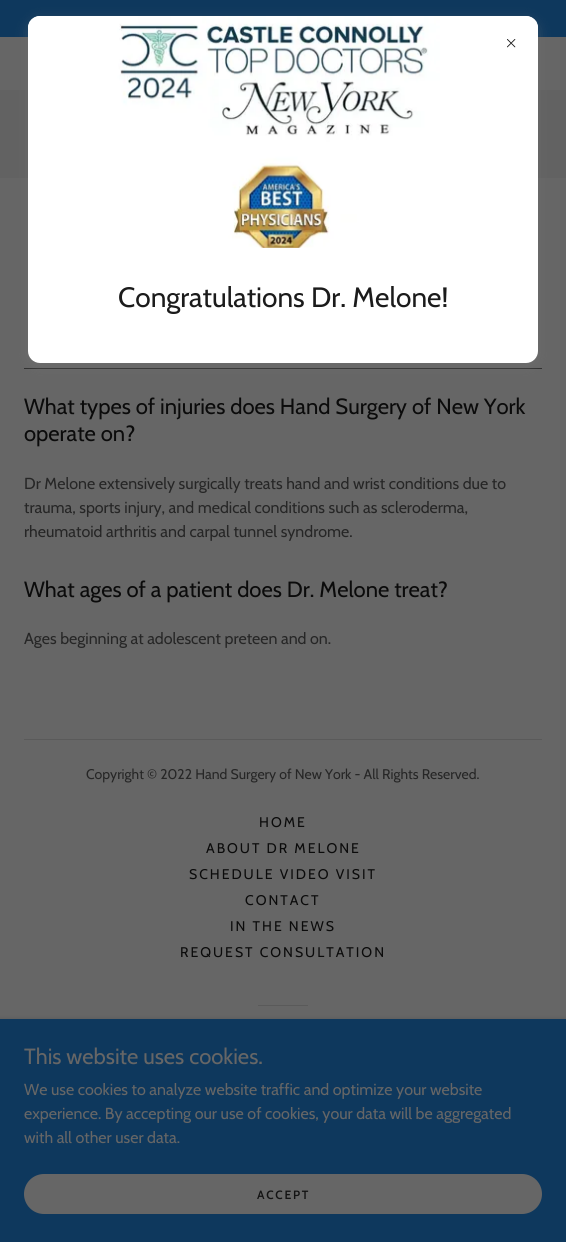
import math
import cairo


def write_spaced(ctx, x, y, s, letter, word):
	ctx.move_to(x, y)
	for ch in s:
		ctx.show_text(ch)
		ctx.rel_move_to(letter + word * (ch == ' '), 0)

def round_path(ctx, x, y, w, h, r):
	ctx.new_sub_path()
	for i, (u, v) in enumerate([(x + w - r, y + h - r), (x + r, y + h - r), (x + r, y + r), (x + w - r, y + r)]):
		ctx.arc(u, v, r, i * math.pi / 2, (i + 1) * math.pi / 2)
	ctx.close_path()

def blur_box(ctx, x, y, w, h, r, blur, alpha):
	ctx.push_group_with_content(cairo.CONTENT_ALPHA)
	ctx.set_operator(cairo.OPERATOR_SOURCE)
	for i in range(15, -16, -2):
		e = blur * i / 6
		if min(w, h) + 2 * e > 0:
			ctx.set_source_rgba(0, 0, 0, alpha * math.erfc((i - 1) / 8.5) / 2)
			round_path(ctx, x - e, y - e, w + 2 * e, h + 2 * e, max(0, min(r + e + blur * .6, min(w, h) / 2 + e)))
			ctx.fill()
	ctx.mask(ctx.pop_group())

def paste(ctx, path, x, y, w, h):
	ctx.save()
	ctx.set_source_surface(cairo.ImageSurface.create_from_png(path), x, y)
	ctx.rectangle(x, y, w, h)
	ctx.fill()
	ctx.restore()

def draw(ctx):
	ctx.set_source_rgb(0.4, 0.4, 0.4)
	ctx.paint()
	ctx.set_source_rgb(0.055, 0.22, 0.365)
	ctx.rectangle(0, 0, 566, 37)
	ctx.fill()
	ctx.set_source_rgb(0.384, 0.384, 0.384)
	ctx.rectangle(0, 90, 566, 88)
	ctx.fill()
	ctx.set_source_rgb(0.188, 0.188, 0.188)
	ctx.rectangle(24, 368, 518, 1)
	ctx.fill()
	ctx.set_source_rgb(0.459, 0.459, 0.459)
	blur_box(ctx, 28, 20, 510, 347, 12, 6, 0.4)
	ctx.set_source_rgb(1, 1, 1)
	round_path(ctx, 28, 16, 510, 347, 12)
	ctx.fill()
	paste(ctx, 'media/2.png', 28, 16, 510, 232)
	paste(ctx, 'media/1.png', 507, 39, 9, 9)
	ctx.select_font_face('Cabin')
	ctx.set_font_size(28)
	ctx.set_source_rgb(0.106, 0.106, 0.106)
	ctx.move_to(118, 307)
	ctx.show_text('Congratulations Dr. Melone!')
	ctx.set_font_size(22)
	ctx.set_source_rgb(0.043, 0.043, 0.043)
	ctx.move_to(24, 414)
	ctx.show_text('What types of injuries does Hand Surgery of New York')
	ctx.move_to(24, 441)
	ctx.show_text('operate on?')
	ctx.set_font_size(16)
	ctx.set_source_rgb(0.149, 0.149, 0.149)
	for x, y, s in [
		(24, 489, 'Dr Melone extensively surgically treats hand and wrist conditions due to'),
		(24, 513, 'trauma, sports injury, and medical conditions such as scleroderma,'),
		(24, 537, 'rheumatoid arthritis and carpal tunnel syndrome.'),
	]:
		ctx.move_to(x, y)
		ctx.show_text(s)
	ctx.set_font_size(22)
	ctx.set_source_rgb(0.043, 0.043, 0.043)
	ctx.move_to(24, 597)
	ctx.show_text('What ages of a patient does Dr. Melone treat?')
	ctx.set_font_size(16)
	ctx.set_source_rgb(0.149, 0.149, 0.149)
	ctx.move_to(24, 644)
	ctx.show_text('Ages beginning at adolescent preteen and on.')
	ctx.set_source_rgb(0.353, 0.353, 0.353)
	ctx.rectangle(24, 739, 518, 1)
	ctx.fill()
	ctx.set_font_size(14)
	ctx.set_source_rgb(0.149, 0.149, 0.149)
	ctx.move_to(86, 779)
	ctx.show_text('Copyright © 2022 Hand Surgery of New York - All Rights Reserved.')
	ctx.set_source_rgb(0.043, 0.043, 0.043)
	for x, y, s in [
		(259, 827, 'HOME'),
		(206, 853, 'ABOUT DR MELONE'),
		(189, 879, 'SCHEDULE VIDEO VISIT'),
		(245, 905, 'CONTACT'),
		(230, 931, 'IN THE NEWS'),
		(180, 957, 'REQUEST CONSULTATION'),
	]:
		write_spaced(ctx, x, y, s, 2, 0)
	ctx.set_source_rgb(0.353, 0.353, 0.353)
	ctx.rectangle(258, 1005, 50, 1)
	ctx.fill()
	ctx.set_source_rgb(0, 0, 0)
	blur_box(ctx, 0, 1021, 566, 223, 0, 3, 0.3)
	ctx.set_source_rgb(0.055, 0.22, 0.365)
	ctx.rectangle(0, 1019, 566, 223)
	ctx.fill()
	ctx.set_font_size(22)
	ctx.set_source_rgb(0.4, 0.4, 0.4)
	ctx.move_to(24, 1064)
	ctx.show_text('This website uses cookies.')
	ctx.set_font_size(16)
	for x, y, s in [
		(24, 1095, 'We use cookies to analyze website traffic and optimize your website'),
		(24, 1119, 'experience. By accepting our use of cookies, your data will be aggregated'),
		(24, 1143, 'with all other user data.'),
	]:
		ctx.move_to(x, y)
		ctx.show_text(s)
	round_path(ctx, 24, 1174, 518, 40, 20)
	ctx.fill()
	ctx.select_font_face('Cabin SemiBold')
	ctx.set_font_size(12)
	ctx.set_source_rgb(0.075, 0.075, 0.075)
	write_spaced(ctx, 257, 1199, 'ACCEPT', 1.75, 0)


surface = cairo.ImageSurface(cairo.FORMAT_RGB24, 566, 1242)
ctx = cairo.Context(surface)
options = cairo.FontOptions()
options.set_hint_metrics(cairo.HINT_METRICS_OFF)
options.set_hint_style(cairo.HINT_STYLE_NONE)
ctx.set_font_options(options)
ctx.set_miter_limit(4)
draw(ctx)
surface.write_to_png('image.png')
